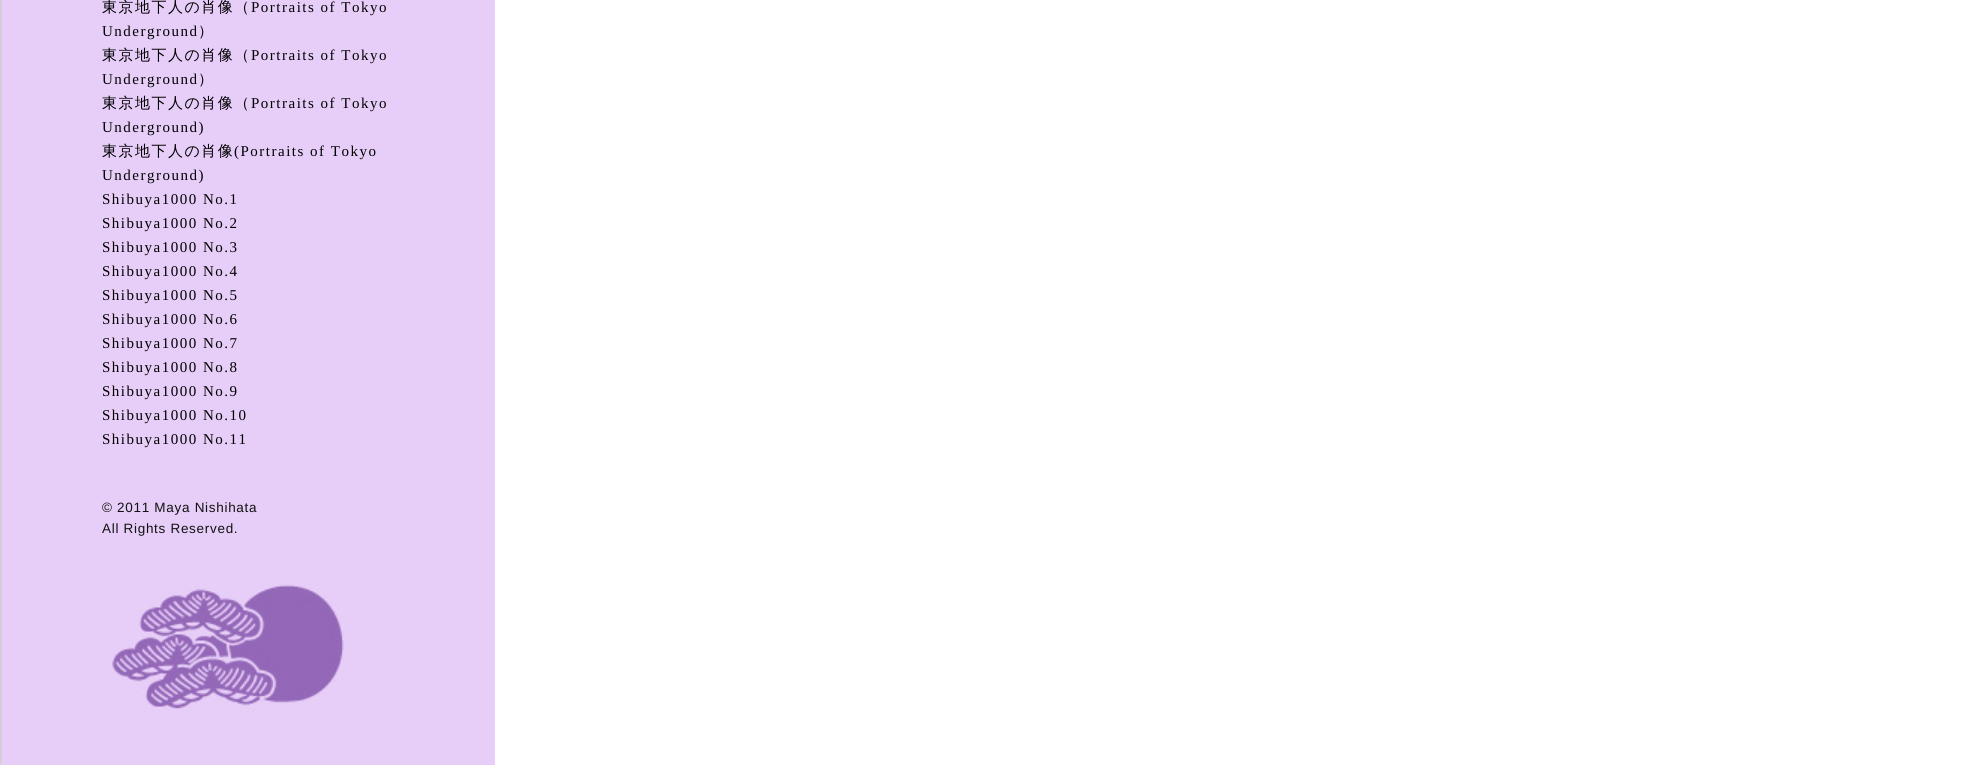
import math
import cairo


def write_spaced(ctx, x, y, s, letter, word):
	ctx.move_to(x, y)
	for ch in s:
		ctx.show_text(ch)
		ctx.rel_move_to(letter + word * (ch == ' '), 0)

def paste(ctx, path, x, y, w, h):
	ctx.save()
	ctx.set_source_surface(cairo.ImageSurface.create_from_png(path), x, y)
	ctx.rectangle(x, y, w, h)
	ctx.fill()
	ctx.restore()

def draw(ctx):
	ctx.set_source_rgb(1, 1, 1)
	ctx.paint()
	paste(ctx, 'media/1.png', 0, 0, 495, 765)
	ctx.select_font_face('WenQuanYi Zen Hei Medium')
	ctx.set_font_size(15)
	ctx.set_source_rgb(0, 0, 0)
	write_spaced(ctx, 102, 12, '東京地下人の肖像（', 1.5, 0)
	ctx.select_font_face('Liberation Serif')
	write_spaced(ctx, 251, 12, 'Portraits of Tokyo', 1.5, 0)
	write_spaced(ctx, 102, 36, 'Underground', 1.5, 0)
	ctx.select_font_face('WenQuanYi Zen Hei Medium')
	write_spaced(ctx, 198, 36, '）', 1.5, 0)
	write_spaced(ctx, 102, 60, '東京地下人の肖像（', 1.5, 0)
	ctx.select_font_face('Liberation Serif')
	write_spaced(ctx, 251, 60, 'Portraits of Tokyo', 1.5, 0)
	write_spaced(ctx, 102, 84, 'Underground', 1.5, 0)
	ctx.select_font_face('WenQuanYi Zen Hei Medium')
	write_spaced(ctx, 198, 84, '）', 1.5, 0)
	write_spaced(ctx, 102, 108, '東京地下人の肖像（', 1.5, 0)
	ctx.select_font_face('Liberation Serif')
	write_spaced(ctx, 251, 108, 'Portraits of Tokyo', 1.5, 0)
	write_spaced(ctx, 102, 132, 'Underground)', 1.5, 0)
	ctx.select_font_face('WenQuanYi Zen Hei Medium')
	write_spaced(ctx, 102, 156, '東京地下人の肖像', 1.5, 0)
	ctx.select_font_face('Liberation Serif')
	for x, y, s in [
		(234, 156, '(Portraits of Tokyo'),
		(102, 180, 'Underground)'),
		(102, 204, 'Shibuya1000 No.1'),
		(102, 228, 'Shibuya1000 No.2'),
		(102, 252, 'Shibuya1000 No.3'),
		(102, 276, 'Shibuya1000 No.4'),
		(102, 300, 'Shibuya1000 No.5'),
		(102, 324, 'Shibuya1000 No.6'),
		(102, 348, 'Shibuya1000 No.7'),
		(102, 372, 'Shibuya1000 No.8'),
		(102, 396, 'Shibuya1000 No.9'),
		(102, 420, 'Shibuya1000 No.10'),
		(102, 444, 'Shibuya1000 No.11'),
	]:
		write_spaced(ctx, x, y, s, 1.5, 0)
	paste(ctx, 'media/2.png', 111, 583, 233, 128)
	ctx.select_font_face('Liberation Sans')
	ctx.set_font_size(13.5)
	ctx.set_source_rgb(0.067, 0.067, 0.067)
	write_spaced(ctx, 102, 512, '© 2011 Maya Nishihata', 0.7, 0)
	write_spaced(ctx, 102, 533, 'All Rights Reserved.', 0.7, 0)


surface = cairo.ImageSurface(cairo.FORMAT_RGB24, 1982, 765)
ctx = cairo.Context(surface)
options = cairo.FontOptions()
options.set_hint_metrics(cairo.HINT_METRICS_OFF)
options.set_hint_style(cairo.HINT_STYLE_NONE)
ctx.set_font_options(options)
ctx.set_miter_limit(4)
draw(ctx)
surface.write_to_png('image.png')
